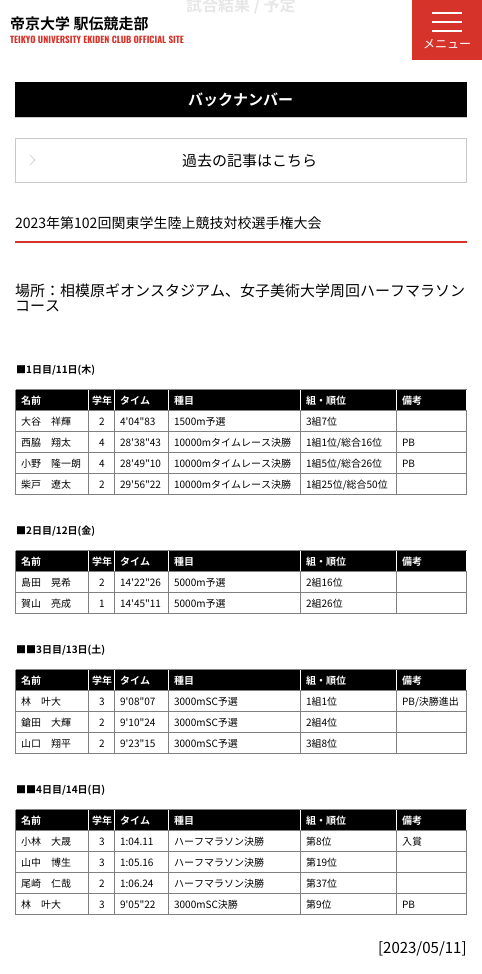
import math
import cairo


def draw(ctx):
	ctx.set_source_rgb(1, 1, 1)
	ctx.paint()
	ctx.select_font_face('Noto Sans JP', cairo.FONT_SLANT_NORMAL, cairo.FONT_WEIGHT_BOLD)
	ctx.set_font_size(16)
	ctx.set_source_rgb(0.902, 0.902, 0.902)
	ctx.move_to(186, 11)
	ctx.show_text('試合結果 / 予定')
	ctx.set_source_rgb(0, 0, 0)
	ctx.rectangle(15, 82, 452, 35)
	ctx.fill()
	ctx.set_source_rgb(0.788, 0.788, 0.788)
	ctx.rectangle(15, 117, 452, 1)
	ctx.fill()
	ctx.set_font_size(15)
	ctx.set_source_rgb(1, 1, 1)
	ctx.move_to(188, 105)
	ctx.show_text('バックナンバー')
	ctx.rectangle(15.5, 138.5, 451, 44)
	ctx.set_source_rgb(0.788, 0.788, 0.788)
	ctx.set_line_width(1)
	ctx.stroke()
	ctx.new_path()
	ctx.move_to(30, 154.5)
	ctx.line_to(35.5, 160)
	ctx.line_to(35, 160.5)
	ctx.line_to(29.5, 155)
	ctx.close_path()
	ctx.fill()
	ctx.new_path()
	ctx.move_to(35, 159.5)
	ctx.line_to(35.5, 160)
	ctx.line_to(30, 165.5)
	ctx.line_to(29.5, 165)
	ctx.close_path()
	ctx.fill()
	ctx.select_font_face('Noto Sans JP')
	ctx.set_source_rgb(0, 0, 0)
	ctx.move_to(182, 166)
	ctx.show_text('過去の記事はこちら')
	ctx.set_source_rgb(0.839, 0.204, 0.169)
	ctx.rectangle(15, 241, 452, 2)
	ctx.fill()
	ctx.set_font_size(14)
	ctx.set_source_rgb(0, 0, 0)
	ctx.move_to(15, 228)
	ctx.show_text('2023年第102回関東学生陸上競技対校選手権大会')
	ctx.set_font_size(15)
	ctx.move_to(15, 296)
	ctx.show_text('場所：相模原ギオンスタジアム、女子美術大学周回ハーフマラソン')
	ctx.move_to(15, 311)
	ctx.show_text('コース')
	ctx.set_source_rgb(0.502, 0.502, 0.502)
	ctx.rectangle(466, 411, 1, 504)
	ctx.rectangle(15, 914, 452, 1)
	ctx.rectangle(15, 390, 1, 525)
	ctx.rectangle(15, 389, 452, 1)
	ctx.fill()
	ctx.set_source_rgb(1, 1, 1)
	ctx.rectangle(15, 389, 1, 1)
	ctx.fill()
	ctx.select_font_face('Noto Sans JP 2', cairo.FONT_SLANT_NORMAL, cairo.FONT_WEIGHT_BOLD)
	ctx.set_font_size(10)
	ctx.set_source_rgb(0, 0, 0)
	ctx.move_to(16, 373)
	ctx.show_text('■')
	ctx.select_font_face('Noto Sans JP', cairo.FONT_SLANT_NORMAL, cairo.FONT_WEIGHT_BOLD)
	ctx.move_to(26, 373)
	ctx.show_text('1日目/11日(木)')
	ctx.rectangle(16, 390, 72, 20)
	ctx.fill()
	ctx.set_source_rgb(0.502, 0.502, 0.502)
	ctx.rectangle(396, 431, 71, 1)
	ctx.rectangle(396, 452, 71, 1)
	ctx.rectangle(396, 473, 71, 1)
	ctx.rectangle(89, 494, 378, 1)
	ctx.rectangle(396, 473, 1, 22)
	ctx.rectangle(300, 473, 97, 1)
	ctx.rectangle(396, 452, 1, 22)
	ctx.rectangle(300, 452, 97, 1)
	ctx.rectangle(396, 431, 1, 22)
	ctx.rectangle(300, 431, 97, 1)
	ctx.rectangle(396, 410, 1, 22)
	ctx.rectangle(396, 410, 71, 1)
	ctx.fill()
	ctx.set_source_rgb(1, 1, 1)
	ctx.rectangle(396, 410, 1, 1)
	ctx.fill()
	ctx.set_source_rgb(0.502, 0.502, 0.502)
	ctx.rectangle(300, 473, 1, 22)
	ctx.rectangle(168, 473, 133, 1)
	ctx.rectangle(300, 452, 1, 22)
	ctx.rectangle(168, 452, 133, 1)
	ctx.rectangle(300, 431, 1, 22)
	ctx.rectangle(168, 431, 133, 1)
	ctx.rectangle(300, 410, 1, 22)
	ctx.rectangle(300, 410, 97, 1)
	ctx.fill()
	ctx.set_source_rgb(1, 1, 1)
	ctx.rectangle(300, 410, 1, 1)
	ctx.fill()
	ctx.set_source_rgb(0.502, 0.502, 0.502)
	ctx.rectangle(168, 473, 1, 22)
	ctx.rectangle(114, 473, 55, 1)
	ctx.rectangle(168, 452, 1, 22)
	ctx.rectangle(114, 452, 55, 1)
	ctx.rectangle(168, 431, 1, 22)
	ctx.rectangle(114, 431, 55, 1)
	ctx.rectangle(168, 410, 1, 22)
	ctx.rectangle(168, 410, 133, 1)
	ctx.fill()
	ctx.set_source_rgb(1, 1, 1)
	ctx.rectangle(168, 410, 1, 1)
	ctx.fill()
	ctx.set_source_rgb(0.502, 0.502, 0.502)
	ctx.rectangle(114, 473, 1, 22)
	ctx.rectangle(88, 473, 27, 1)
	ctx.rectangle(114, 452, 1, 22)
	ctx.rectangle(88, 452, 27, 1)
	ctx.rectangle(114, 431, 1, 22)
	ctx.rectangle(88, 431, 27, 1)
	ctx.rectangle(114, 410, 1, 22)
	ctx.rectangle(114, 410, 55, 1)
	ctx.fill()
	ctx.set_source_rgb(1, 1, 1)
	ctx.rectangle(114, 410, 1, 1)
	ctx.fill()
	ctx.set_source_rgb(0.502, 0.502, 0.502)
	ctx.rectangle(88, 473, 1, 22)
	ctx.rectangle(15, 473, 74, 1)
	ctx.rectangle(88, 452, 1, 22)
	ctx.rectangle(15, 452, 74, 1)
	ctx.rectangle(88, 431, 1, 22)
	ctx.rectangle(15, 431, 74, 1)
	ctx.rectangle(88, 410, 1, 22)
	ctx.rectangle(88, 410, 27, 1)
	ctx.fill()
	ctx.set_source_rgb(1, 1, 1)
	ctx.rectangle(88, 410, 1, 1)
	ctx.fill()
	ctx.set_source_rgb(0.502, 0.502, 0.502)
	ctx.rectangle(15, 410, 74, 1)
	ctx.fill()
	ctx.set_source_rgb(1, 1, 1)
	ctx.move_to(21, 404)
	ctx.show_text('名前')
	ctx.set_source_rgb(0, 0, 0)
	ctx.rectangle(89, 390, 25, 20)
	ctx.fill()
	ctx.set_source_rgb(1, 1, 1)
	ctx.move_to(92, 404)
	ctx.show_text('学年')
	ctx.set_source_rgb(0, 0, 0)
	ctx.rectangle(115, 390, 53, 20)
	ctx.fill()
	ctx.set_source_rgb(1, 1, 1)
	ctx.move_to(120, 404)
	ctx.show_text('タイム')
	ctx.set_source_rgb(0, 0, 0)
	ctx.rectangle(169, 390, 131, 20)
	ctx.fill()
	ctx.set_source_rgb(1, 1, 1)
	ctx.move_to(174, 404)
	ctx.show_text('種目')
	ctx.set_source_rgb(0, 0, 0)
	ctx.rectangle(301, 390, 95, 20)
	ctx.fill()
	ctx.set_source_rgb(1, 1, 1)
	ctx.move_to(306, 404)
	ctx.show_text('組・順位')
	ctx.set_source_rgb(0, 0, 0)
	ctx.rectangle(397, 390, 69, 20)
	ctx.fill()
	ctx.set_source_rgb(1, 1, 1)
	ctx.move_to(402, 404)
	ctx.show_text('備考')
	ctx.select_font_face('Noto Sans JP')
	ctx.set_source_rgb(0, 0, 0)
	for x, y, s in [
		(21, 425, '大谷　祥輝'),
		(99, 425, '2'),
		(120, 425, '4\'04"83'),
		(174, 425, '1500m予選'),
		(306, 425, '3組7位'),
		(21, 446, '西脇　翔太'),
		(99, 446, '4'),
		(120, 446, '28\'38"43'),
		(174, 446, '10000mタイムレース決勝'),
		(306, 446, '1組1位/総合16位'),
		(402, 446, 'PB'),
		(21, 467, '小野　隆一朗'),
		(99, 467, '4'),
		(120, 467, '28\'49"10'),
		(174, 467, '10000mタイムレース決勝'),
		(306, 467, '1組5位/総合26位'),
		(402, 467, 'PB'),
	]:
		ctx.move_to(x, y)
		ctx.show_text(s)
	ctx.set_source_rgb(1, 1, 1)
	ctx.rectangle(466, 550, 1, 22)
	ctx.rectangle(466, 494, 1, 57)
	ctx.fill()
	ctx.set_source_rgb(0.502, 0.502, 0.502)
	ctx.rectangle(15, 550, 452, 1)
	ctx.fill()
	ctx.set_source_rgb(1, 1, 1)
	ctx.rectangle(15, 494, 1, 57)
	ctx.fill()
	ctx.set_source_rgb(0.502, 0.502, 0.502)
	ctx.rectangle(15, 494, 74, 1)
	ctx.fill()
	ctx.set_source_rgb(0, 0, 0)
	for x, y, s in [
		(21, 488, '柴戸　遼太'),
		(99, 488, '2'),
		(120, 488, '29\'56"22'),
		(174, 488, '10000mタイムレース決勝'),
		(306, 488, '1組25位/総合50位'),
	]:
		ctx.move_to(x, y)
		ctx.show_text(s)
	ctx.set_source_rgb(0.502, 0.502, 0.502)
	ctx.rectangle(466, 494, 1, 1)
	ctx.fill()
	ctx.select_font_face('Noto Sans JP 2', cairo.FONT_SLANT_NORMAL, cairo.FONT_WEIGHT_BOLD)
	ctx.set_source_rgb(0, 0, 0)
	ctx.move_to(16, 534)
	ctx.show_text('■')
	ctx.select_font_face('Noto Sans JP', cairo.FONT_SLANT_NORMAL, cairo.FONT_WEIGHT_BOLD)
	ctx.move_to(26, 534)
	ctx.show_text('2日目/12日(金)')
	ctx.rectangle(16, 551, 72, 20)
	ctx.fill()
	ctx.set_source_rgb(0.502, 0.502, 0.502)
	ctx.rectangle(396, 592, 71, 1)
	ctx.rectangle(89, 613, 378, 1)
	ctx.rectangle(396, 592, 1, 22)
	ctx.rectangle(300, 592, 97, 1)
	ctx.rectangle(396, 571, 1, 22)
	ctx.rectangle(396, 571, 71, 1)
	ctx.fill()
	ctx.set_source_rgb(1, 1, 1)
	ctx.rectangle(396, 571, 1, 1)
	ctx.fill()
	ctx.set_source_rgb(0.502, 0.502, 0.502)
	ctx.rectangle(300, 592, 1, 22)
	ctx.rectangle(168, 592, 133, 1)
	ctx.rectangle(300, 571, 1, 22)
	ctx.rectangle(300, 571, 97, 1)
	ctx.fill()
	ctx.set_source_rgb(1, 1, 1)
	ctx.rectangle(300, 571, 1, 1)
	ctx.fill()
	ctx.set_source_rgb(0.502, 0.502, 0.502)
	ctx.rectangle(168, 592, 1, 22)
	ctx.rectangle(114, 592, 55, 1)
	ctx.rectangle(168, 571, 1, 22)
	ctx.rectangle(168, 571, 133, 1)
	ctx.fill()
	ctx.set_source_rgb(1, 1, 1)
	ctx.rectangle(168, 571, 1, 1)
	ctx.fill()
	ctx.set_source_rgb(0.502, 0.502, 0.502)
	ctx.rectangle(114, 592, 1, 22)
	ctx.rectangle(88, 592, 27, 1)
	ctx.rectangle(114, 571, 1, 22)
	ctx.rectangle(114, 571, 55, 1)
	ctx.fill()
	ctx.set_source_rgb(1, 1, 1)
	ctx.rectangle(114, 571, 1, 1)
	ctx.fill()
	ctx.set_source_rgb(0.502, 0.502, 0.502)
	ctx.rectangle(88, 592, 1, 22)
	ctx.rectangle(15, 592, 74, 1)
	ctx.rectangle(88, 571, 1, 22)
	ctx.rectangle(88, 571, 27, 1)
	ctx.fill()
	ctx.set_source_rgb(1, 1, 1)
	ctx.rectangle(88, 571, 1, 1)
	ctx.fill()
	ctx.set_source_rgb(0.502, 0.502, 0.502)
	ctx.rectangle(15, 571, 74, 1)
	ctx.fill()
	ctx.set_source_rgb(1, 1, 1)
	ctx.move_to(21, 565)
	ctx.show_text('名前')
	ctx.set_source_rgb(0, 0, 0)
	ctx.rectangle(89, 551, 25, 20)
	ctx.fill()
	ctx.set_source_rgb(1, 1, 1)
	ctx.move_to(92, 565)
	ctx.show_text('学年')
	ctx.set_source_rgb(0, 0, 0)
	ctx.rectangle(115, 551, 53, 20)
	ctx.fill()
	ctx.set_source_rgb(1, 1, 1)
	ctx.move_to(120, 565)
	ctx.show_text('タイム')
	ctx.set_source_rgb(0, 0, 0)
	ctx.rectangle(169, 551, 131, 20)
	ctx.fill()
	ctx.set_source_rgb(1, 1, 1)
	ctx.move_to(174, 565)
	ctx.show_text('種目')
	ctx.set_source_rgb(0, 0, 0)
	ctx.rectangle(301, 551, 95, 20)
	ctx.fill()
	ctx.set_source_rgb(1, 1, 1)
	ctx.move_to(306, 565)
	ctx.show_text('組・順位')
	ctx.set_source_rgb(0, 0, 0)
	ctx.rectangle(397, 551, 69, 20)
	ctx.fill()
	ctx.set_source_rgb(1, 1, 1)
	ctx.move_to(402, 565)
	ctx.show_text('備考')
	ctx.select_font_face('Noto Sans JP')
	ctx.set_source_rgb(0, 0, 0)
	for x, y, s in [
		(21, 586, '島田　晃希'),
		(99, 586, '2'),
		(120, 586, '14\'22"26'),
		(174, 586, '5000m予選'),
		(306, 586, '2組16位'),
	]:
		ctx.move_to(x, y)
		ctx.show_text(s)
	ctx.set_source_rgb(1, 1, 1)
	ctx.rectangle(466, 669, 1, 22)
	ctx.rectangle(466, 613, 1, 57)
	ctx.fill()
	ctx.set_source_rgb(0.502, 0.502, 0.502)
	ctx.rectangle(15, 669, 452, 1)
	ctx.fill()
	ctx.set_source_rgb(1, 1, 1)
	ctx.rectangle(15, 613, 1, 57)
	ctx.fill()
	ctx.set_source_rgb(0.502, 0.502, 0.502)
	ctx.rectangle(15, 613, 74, 1)
	ctx.fill()
	ctx.set_source_rgb(0, 0, 0)
	for x, y, s in [
		(21, 607, '賀山　亮成'),
		(99, 607, '1'),
		(120, 607, '14\'45"11'),
		(174, 607, '5000m予選'),
		(306, 607, '2組26位'),
	]:
		ctx.move_to(x, y)
		ctx.show_text(s)
	ctx.set_source_rgb(0.502, 0.502, 0.502)
	ctx.rectangle(466, 613, 1, 1)
	ctx.fill()
	ctx.select_font_face('Noto Sans JP 2', cairo.FONT_SLANT_NORMAL, cairo.FONT_WEIGHT_BOLD)
	ctx.set_source_rgb(0, 0, 0)
	ctx.move_to(16, 653)
	ctx.show_text('■■')
	ctx.select_font_face('Noto Sans JP', cairo.FONT_SLANT_NORMAL, cairo.FONT_WEIGHT_BOLD)
	ctx.move_to(36, 653)
	ctx.show_text('3日目/13日(土)')
	ctx.rectangle(16, 670, 72, 20)
	ctx.fill()
	ctx.set_source_rgb(0.502, 0.502, 0.502)
	ctx.rectangle(396, 711, 71, 1)
	ctx.rectangle(396, 732, 71, 1)
	ctx.rectangle(89, 753, 378, 1)
	ctx.rectangle(396, 732, 1, 22)
	ctx.rectangle(300, 732, 97, 1)
	ctx.rectangle(396, 711, 1, 22)
	ctx.rectangle(300, 711, 97, 1)
	ctx.rectangle(396, 690, 1, 22)
	ctx.rectangle(396, 690, 71, 1)
	ctx.fill()
	ctx.set_source_rgb(1, 1, 1)
	ctx.rectangle(396, 690, 1, 1)
	ctx.fill()
	ctx.set_source_rgb(0.502, 0.502, 0.502)
	ctx.rectangle(300, 732, 1, 22)
	ctx.rectangle(168, 732, 133, 1)
	ctx.rectangle(300, 711, 1, 22)
	ctx.rectangle(168, 711, 133, 1)
	ctx.rectangle(300, 690, 1, 22)
	ctx.rectangle(300, 690, 97, 1)
	ctx.fill()
	ctx.set_source_rgb(1, 1, 1)
	ctx.rectangle(300, 690, 1, 1)
	ctx.fill()
	ctx.set_source_rgb(0.502, 0.502, 0.502)
	ctx.rectangle(168, 732, 1, 22)
	ctx.rectangle(114, 732, 55, 1)
	ctx.rectangle(168, 711, 1, 22)
	ctx.rectangle(114, 711, 55, 1)
	ctx.rectangle(168, 690, 1, 22)
	ctx.rectangle(168, 690, 133, 1)
	ctx.fill()
	ctx.set_source_rgb(1, 1, 1)
	ctx.rectangle(168, 690, 1, 1)
	ctx.fill()
	ctx.set_source_rgb(0.502, 0.502, 0.502)
	ctx.rectangle(114, 732, 1, 22)
	ctx.rectangle(88, 732, 27, 1)
	ctx.rectangle(114, 711, 1, 22)
	ctx.rectangle(88, 711, 27, 1)
	ctx.rectangle(114, 690, 1, 22)
	ctx.rectangle(114, 690, 55, 1)
	ctx.fill()
	ctx.set_source_rgb(1, 1, 1)
	ctx.rectangle(114, 690, 1, 1)
	ctx.fill()
	ctx.set_source_rgb(0.502, 0.502, 0.502)
	ctx.rectangle(88, 732, 1, 22)
	ctx.rectangle(15, 732, 74, 1)
	ctx.rectangle(88, 711, 1, 22)
	ctx.rectangle(15, 711, 74, 1)
	ctx.rectangle(88, 690, 1, 22)
	ctx.rectangle(88, 690, 27, 1)
	ctx.fill()
	ctx.set_source_rgb(1, 1, 1)
	ctx.rectangle(88, 690, 1, 1)
	ctx.fill()
	ctx.set_source_rgb(0.502, 0.502, 0.502)
	ctx.rectangle(15, 690, 74, 1)
	ctx.fill()
	ctx.set_source_rgb(1, 1, 1)
	ctx.move_to(21, 684)
	ctx.show_text('名前')
	ctx.set_source_rgb(0, 0, 0)
	ctx.rectangle(89, 670, 25, 20)
	ctx.fill()
	ctx.set_source_rgb(1, 1, 1)
	ctx.move_to(92, 684)
	ctx.show_text('学年')
	ctx.set_source_rgb(0, 0, 0)
	ctx.rectangle(115, 670, 53, 20)
	ctx.fill()
	ctx.set_source_rgb(1, 1, 1)
	ctx.move_to(120, 684)
	ctx.show_text('タイム')
	ctx.set_source_rgb(0, 0, 0)
	ctx.rectangle(169, 670, 131, 20)
	ctx.fill()
	ctx.set_source_rgb(1, 1, 1)
	ctx.move_to(174, 684)
	ctx.show_text('種目')
	ctx.set_source_rgb(0, 0, 0)
	ctx.rectangle(301, 670, 95, 20)
	ctx.fill()
	ctx.set_source_rgb(1, 1, 1)
	ctx.move_to(306, 684)
	ctx.show_text('組・順位')
	ctx.set_source_rgb(0, 0, 0)
	ctx.rectangle(397, 670, 69, 20)
	ctx.fill()
	ctx.set_source_rgb(1, 1, 1)
	ctx.move_to(402, 684)
	ctx.show_text('備考')
	ctx.select_font_face('Noto Sans JP')
	ctx.set_source_rgb(0, 0, 0)
	for x, y, s in [
		(21, 705, '林　叶大'),
		(99, 705, '3'),
		(120, 705, '9\'08"07'),
		(174, 705, '3000mSC予選'),
		(306, 705, '1組1位'),
		(402, 705, 'PB/決勝進出'),
		(21, 726, '鎗田　大輝'),
		(99, 726, '2'),
		(120, 726, '9\'10"24'),
		(174, 726, '3000mSC予選'),
		(306, 726, '2組4位'),
	]:
		ctx.move_to(x, y)
		ctx.show_text(s)
	ctx.set_source_rgb(1, 1, 1)
	ctx.rectangle(466, 809, 1, 22)
	ctx.rectangle(466, 753, 1, 57)
	ctx.fill()
	ctx.set_source_rgb(0.502, 0.502, 0.502)
	ctx.rectangle(15, 809, 452, 1)
	ctx.fill()
	ctx.set_source_rgb(1, 1, 1)
	ctx.rectangle(15, 753, 1, 57)
	ctx.fill()
	ctx.set_source_rgb(0.502, 0.502, 0.502)
	ctx.rectangle(15, 753, 74, 1)
	ctx.fill()
	ctx.set_source_rgb(0, 0, 0)
	for x, y, s in [
		(21, 747, '山口　翔平'),
		(99, 747, '2'),
		(120, 747, '9\'23"15'),
		(174, 747, '3000mSC予選'),
		(306, 747, '3組8位'),
	]:
		ctx.move_to(x, y)
		ctx.show_text(s)
	ctx.set_source_rgb(0.502, 0.502, 0.502)
	ctx.rectangle(466, 753, 1, 1)
	ctx.fill()
	ctx.select_font_face('Noto Sans JP 2', cairo.FONT_SLANT_NORMAL, cairo.FONT_WEIGHT_BOLD)
	ctx.set_source_rgb(0, 0, 0)
	ctx.move_to(16, 793)
	ctx.show_text('■■')
	ctx.select_font_face('Noto Sans JP', cairo.FONT_SLANT_NORMAL, cairo.FONT_WEIGHT_BOLD)
	ctx.move_to(36, 793)
	ctx.show_text('4日目/14日(日)')
	ctx.rectangle(16, 810, 72, 20)
	ctx.fill()
	ctx.set_source_rgb(0.502, 0.502, 0.502)
	ctx.rectangle(396, 851, 71, 1)
	ctx.rectangle(396, 872, 71, 1)
	ctx.rectangle(396, 893, 71, 1)
	ctx.rectangle(396, 893, 1, 22)
	ctx.rectangle(300, 893, 97, 1)
	ctx.rectangle(396, 872, 1, 22)
	ctx.rectangle(300, 872, 97, 1)
	ctx.rectangle(396, 851, 1, 22)
	ctx.rectangle(300, 851, 97, 1)
	ctx.rectangle(396, 830, 1, 22)
	ctx.rectangle(396, 830, 71, 1)
	ctx.fill()
	ctx.set_source_rgb(1, 1, 1)
	ctx.rectangle(396, 830, 1, 1)
	ctx.fill()
	ctx.set_source_rgb(0.502, 0.502, 0.502)
	ctx.rectangle(300, 893, 1, 22)
	ctx.rectangle(168, 893, 133, 1)
	ctx.rectangle(300, 872, 1, 22)
	ctx.rectangle(168, 872, 133, 1)
	ctx.rectangle(300, 851, 1, 22)
	ctx.rectangle(168, 851, 133, 1)
	ctx.rectangle(300, 830, 1, 22)
	ctx.rectangle(300, 830, 97, 1)
	ctx.fill()
	ctx.set_source_rgb(1, 1, 1)
	ctx.rectangle(300, 830, 1, 1)
	ctx.fill()
	ctx.set_source_rgb(0.502, 0.502, 0.502)
	ctx.rectangle(168, 893, 1, 22)
	ctx.rectangle(114, 893, 55, 1)
	ctx.rectangle(168, 872, 1, 22)
	ctx.rectangle(114, 872, 55, 1)
	ctx.rectangle(168, 851, 1, 22)
	ctx.rectangle(114, 851, 55, 1)
	ctx.rectangle(168, 830, 1, 22)
	ctx.rectangle(168, 830, 133, 1)
	ctx.fill()
	ctx.set_source_rgb(1, 1, 1)
	ctx.rectangle(168, 830, 1, 1)
	ctx.fill()
	ctx.set_source_rgb(0.502, 0.502, 0.502)
	ctx.rectangle(114, 893, 1, 22)
	ctx.rectangle(88, 893, 27, 1)
	ctx.rectangle(114, 872, 1, 22)
	ctx.rectangle(88, 872, 27, 1)
	ctx.rectangle(114, 851, 1, 22)
	ctx.rectangle(88, 851, 27, 1)
	ctx.rectangle(114, 830, 1, 22)
	ctx.rectangle(114, 830, 55, 1)
	ctx.fill()
	ctx.set_source_rgb(1, 1, 1)
	ctx.rectangle(114, 830, 1, 1)
	ctx.fill()
	ctx.set_source_rgb(0.502, 0.502, 0.502)
	ctx.rectangle(88, 893, 1, 22)
	ctx.rectangle(15, 893, 74, 1)
	ctx.rectangle(88, 872, 1, 22)
	ctx.rectangle(15, 872, 74, 1)
	ctx.rectangle(88, 851, 1, 22)
	ctx.rectangle(15, 851, 74, 1)
	ctx.rectangle(88, 830, 1, 22)
	ctx.rectangle(88, 830, 27, 1)
	ctx.fill()
	ctx.set_source_rgb(1, 1, 1)
	ctx.rectangle(88, 830, 1, 1)
	ctx.fill()
	ctx.set_source_rgb(0.502, 0.502, 0.502)
	ctx.rectangle(15, 830, 74, 1)
	ctx.fill()
	ctx.set_source_rgb(1, 1, 1)
	ctx.move_to(21, 824)
	ctx.show_text('名前')
	ctx.set_source_rgb(0, 0, 0)
	ctx.rectangle(89, 810, 25, 20)
	ctx.fill()
	ctx.set_source_rgb(1, 1, 1)
	ctx.move_to(92, 824)
	ctx.show_text('学年')
	ctx.set_source_rgb(0, 0, 0)
	ctx.rectangle(115, 810, 53, 20)
	ctx.fill()
	ctx.set_source_rgb(1, 1, 1)
	ctx.move_to(120, 824)
	ctx.show_text('タイム')
	ctx.set_source_rgb(0, 0, 0)
	ctx.rectangle(169, 810, 131, 20)
	ctx.fill()
	ctx.set_source_rgb(1, 1, 1)
	ctx.move_to(174, 824)
	ctx.show_text('種目')
	ctx.set_source_rgb(0, 0, 0)
	ctx.rectangle(301, 810, 95, 20)
	ctx.fill()
	ctx.set_source_rgb(1, 1, 1)
	ctx.move_to(306, 824)
	ctx.show_text('組・順位')
	ctx.set_source_rgb(0, 0, 0)
	ctx.rectangle(397, 810, 69, 20)
	ctx.fill()
	ctx.set_source_rgb(1, 1, 1)
	ctx.move_to(402, 824)
	ctx.show_text('備考')
	ctx.select_font_face('Noto Sans JP')
	ctx.set_source_rgb(0, 0, 0)
	for x, y, s in [
		(21, 845, '小林　大晟'),
		(99, 845, '3'),
		(120, 845, '1:04.11'),
		(174, 845, 'ハーフマラソン決勝'),
		(306, 845, '第8位'),
		(402, 845, '入賞'),
		(21, 866, '山中　博生'),
		(99, 866, '3'),
		(120, 866, '1:05.16'),
		(174, 866, 'ハーフマラソン決勝'),
		(306, 866, '第19位'),
		(21, 887, '尾崎　仁哉'),
		(99, 887, '2'),
		(120, 887, '1:06.24'),
		(174, 887, 'ハーフマラソン決勝'),
		(306, 887, '第37位'),
		(21, 908, '林　叶大'),
		(99, 908, '3'),
		(120, 908, '9\'05"22'),
		(174, 908, '3000mSC決勝'),
		(306, 908, '第9位'),
		(402, 908, 'PB'),
	]:
		ctx.move_to(x, y)
		ctx.show_text(s)
	ctx.set_font_size(15)
	ctx.move_to(378, 953)
	ctx.show_text('[2023/05/11]')
	ctx.select_font_face('Noto Sans JP', cairo.FONT_SLANT_NORMAL, cairo.FONT_WEIGHT_BOLD)
	ctx.move_to(10, 29)
	ctx.show_text('帝京大学 駅伝競走部')
	ctx.select_font_face('Oswald', cairo.FONT_SLANT_NORMAL, cairo.FONT_WEIGHT_BOLD)
	ctx.set_font_size(9)
	ctx.set_source_rgb(0.839, 0.204, 0.169)
	ctx.move_to(10, 43)
	ctx.show_text('TEIKYO UNIVERSITY EKIDEN CLUB OFFICIAL SITE')
	ctx.rectangle(412, 0, 70, 60)
	ctx.fill()
	ctx.set_source_rgb(1, 1, 1)
	ctx.rectangle(432, 12, 30, 2)
	ctx.rectangle(432, 21, 30, 2)
	ctx.rectangle(432, 30, 30, 2)
	ctx.fill()
	ctx.select_font_face('Noto Sans JP')
	ctx.set_font_size(12)
	ctx.move_to(423, 48)
	ctx.show_text('メニュー')


surface = cairo.ImageSurface(cairo.FORMAT_RGB24, 482, 974)
ctx = cairo.Context(surface)
options = cairo.FontOptions()
options.set_hint_metrics(cairo.HINT_METRICS_OFF)
options.set_hint_style(cairo.HINT_STYLE_NONE)
ctx.set_font_options(options)
ctx.set_miter_limit(4)
draw(ctx)
surface.write_to_png('image.png')
